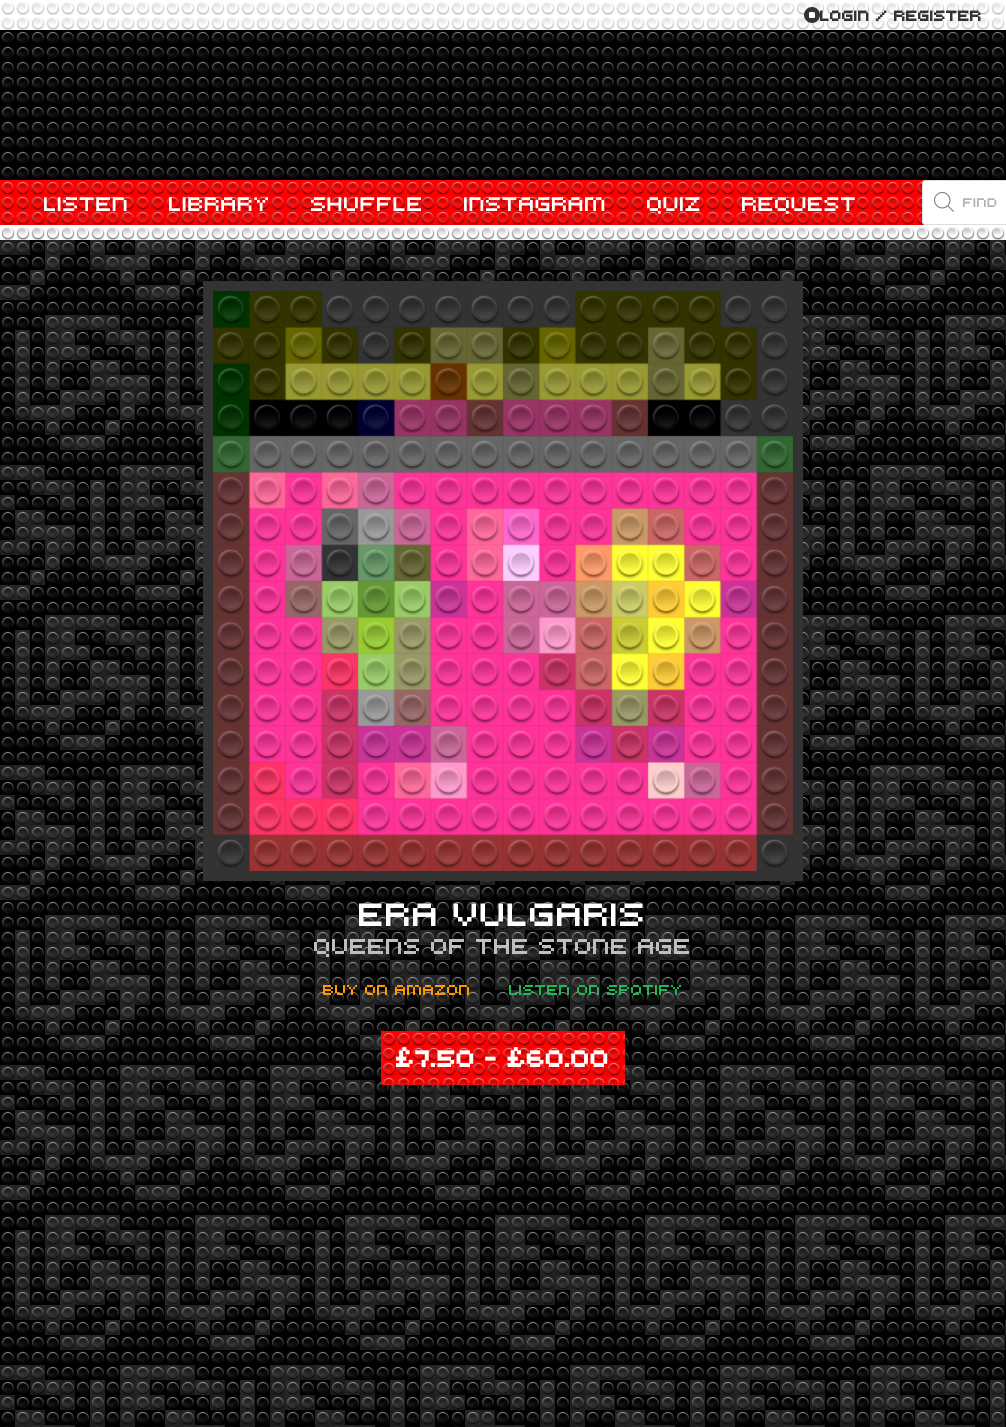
import math
import cairo


def round_path(ctx, x, y, w, h, r):
	ctx.new_sub_path()
	for i, (u, v) in enumerate([(x + w - r, y + h - r), (x + r, y + h - r), (x + r, y + r), (x + w - r, y + r)]):
		ctx.arc(u, v, r, i * math.pi / 2, (i + 1) * math.pi / 2)
	ctx.close_path()

def paste(ctx, path, x, y, w, h):
	ctx.save()
	ctx.set_source_surface(cairo.ImageSurface.create_from_png(path), x, y)
	ctx.rectangle(x, y, w, h)
	ctx.fill()
	ctx.restore()

def draw(ctx):
	ctx.set_source_rgb(1, 1, 1)
	ctx.paint()
	paste(ctx, 'media/1.png', 1, 2, 1004, 28)
	paste(ctx, 'media/2.png', 804, 7, 16, 16)
	ctx.select_font_face('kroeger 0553', cairo.FONT_SLANT_NORMAL, cairo.FONT_WEIGHT_BOLD)
	ctx.set_font_size(16)
	ctx.set_source_rgb(0.2, 0.2, 0.2)
	ctx.move_to(820, 21)
	ctx.show_text('LOGIN / REGISTER')
	ctx.set_source_rgb(0, 0, 0)
	ctx.rectangle(0, 30, 1006, 150)
	ctx.fill()
	paste(ctx, 'media/3.png', 1, 31, 1003, 147)
	ctx.set_source_rgb(1, 0, 0)
	ctx.rectangle(0, 180, 925, 45)
	ctx.fill()
	paste(ctx, 'media/4.png', 1, 181, 924, 44)
	ctx.select_font_face('kroeger 0553')
	ctx.set_font_size(22)
	ctx.set_source_rgb(1, 1, 1)
	for x, y, s in [
		(44, 211, 'LISTEN'),
		(169, 211, 'LIBRARY'),
		(311, 211, 'SHUFFLE'),
		(464, 211, 'INSTAGRAM'),
		(647, 211, 'QUIZ'),
		(742, 211, 'REQUEST'),
	]:
		ctx.move_to(x, y)
		ctx.show_text(s)
	round_path(ctx, 922.5, 180.5, 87, 44, 2.5)
	ctx.fill_preserve()
	ctx.set_source_rgb(0.867, 0.867, 0.867)
	ctx.set_line_width(1)
	ctx.stroke()
	paste(ctx, 'media/5.png', 934, 192, 20, 20)
	ctx.set_font_size(14)
	ctx.set_source_rgb(0.702, 0.702, 0.702)
	ctx.move_to(963, 207)
	ctx.show_text('FIND')
	paste(ctx, 'media/6.png', 0, 225, 1006, 15)
	paste(ctx, 'media/7.png', 0, 240, 1006, 1187)
	ctx.rectangle(208, 286, 590, 590)
	ctx.set_source_rgb(0.2, 0.2, 0.2)
	ctx.set_line_width(10)
	ctx.stroke()
	paste(ctx, 'media/8.png', 213, 291, 580, 580)
	ctx.set_font_size(36)
	ctx.set_source_rgb(1, 1, 1)
	ctx.move_to(359, 926)
	ctx.show_text('ERA VULGARIS')
	ctx.set_font_size(24)
	ctx.set_source_rgb(0.749, 0.749, 0.749)
	ctx.move_to(314, 954)
	ctx.show_text('QUEENS OF THE STONE AGE')
	ctx.set_font_size(16)
	ctx.set_source_rgb(1, 0.6, 0)
	ctx.move_to(323, 995)
	ctx.show_text('BUY ON AMAZON')
	ctx.set_source_rgb(0.114, 0.725, 0.329)
	ctx.move_to(509, 995)
	ctx.show_text('LISTEN ON SPOTIFY')
	ctx.set_source_rgb(1, 0, 0)
	ctx.rectangle(381, 1031, 244, 54)
	ctx.fill()
	paste(ctx, 'media/9.png', 382, 1032, 243, 53)
	ctx.select_font_face('kroeger 0553', cairo.FONT_SLANT_NORMAL, cairo.FONT_WEIGHT_BOLD)
	ctx.set_font_size(25.5)
	ctx.set_source_rgb(1, 1, 1)
	ctx.move_to(396, 1067)
	ctx.show_text('£7.50 – £60.00')


surface = cairo.ImageSurface(cairo.FORMAT_RGB24, 1006, 1427)
ctx = cairo.Context(surface)
options = cairo.FontOptions()
options.set_hint_metrics(cairo.HINT_METRICS_OFF)
options.set_hint_style(cairo.HINT_STYLE_NONE)
ctx.set_font_options(options)
ctx.set_miter_limit(4)
draw(ctx)
surface.write_to_png('image.png')
